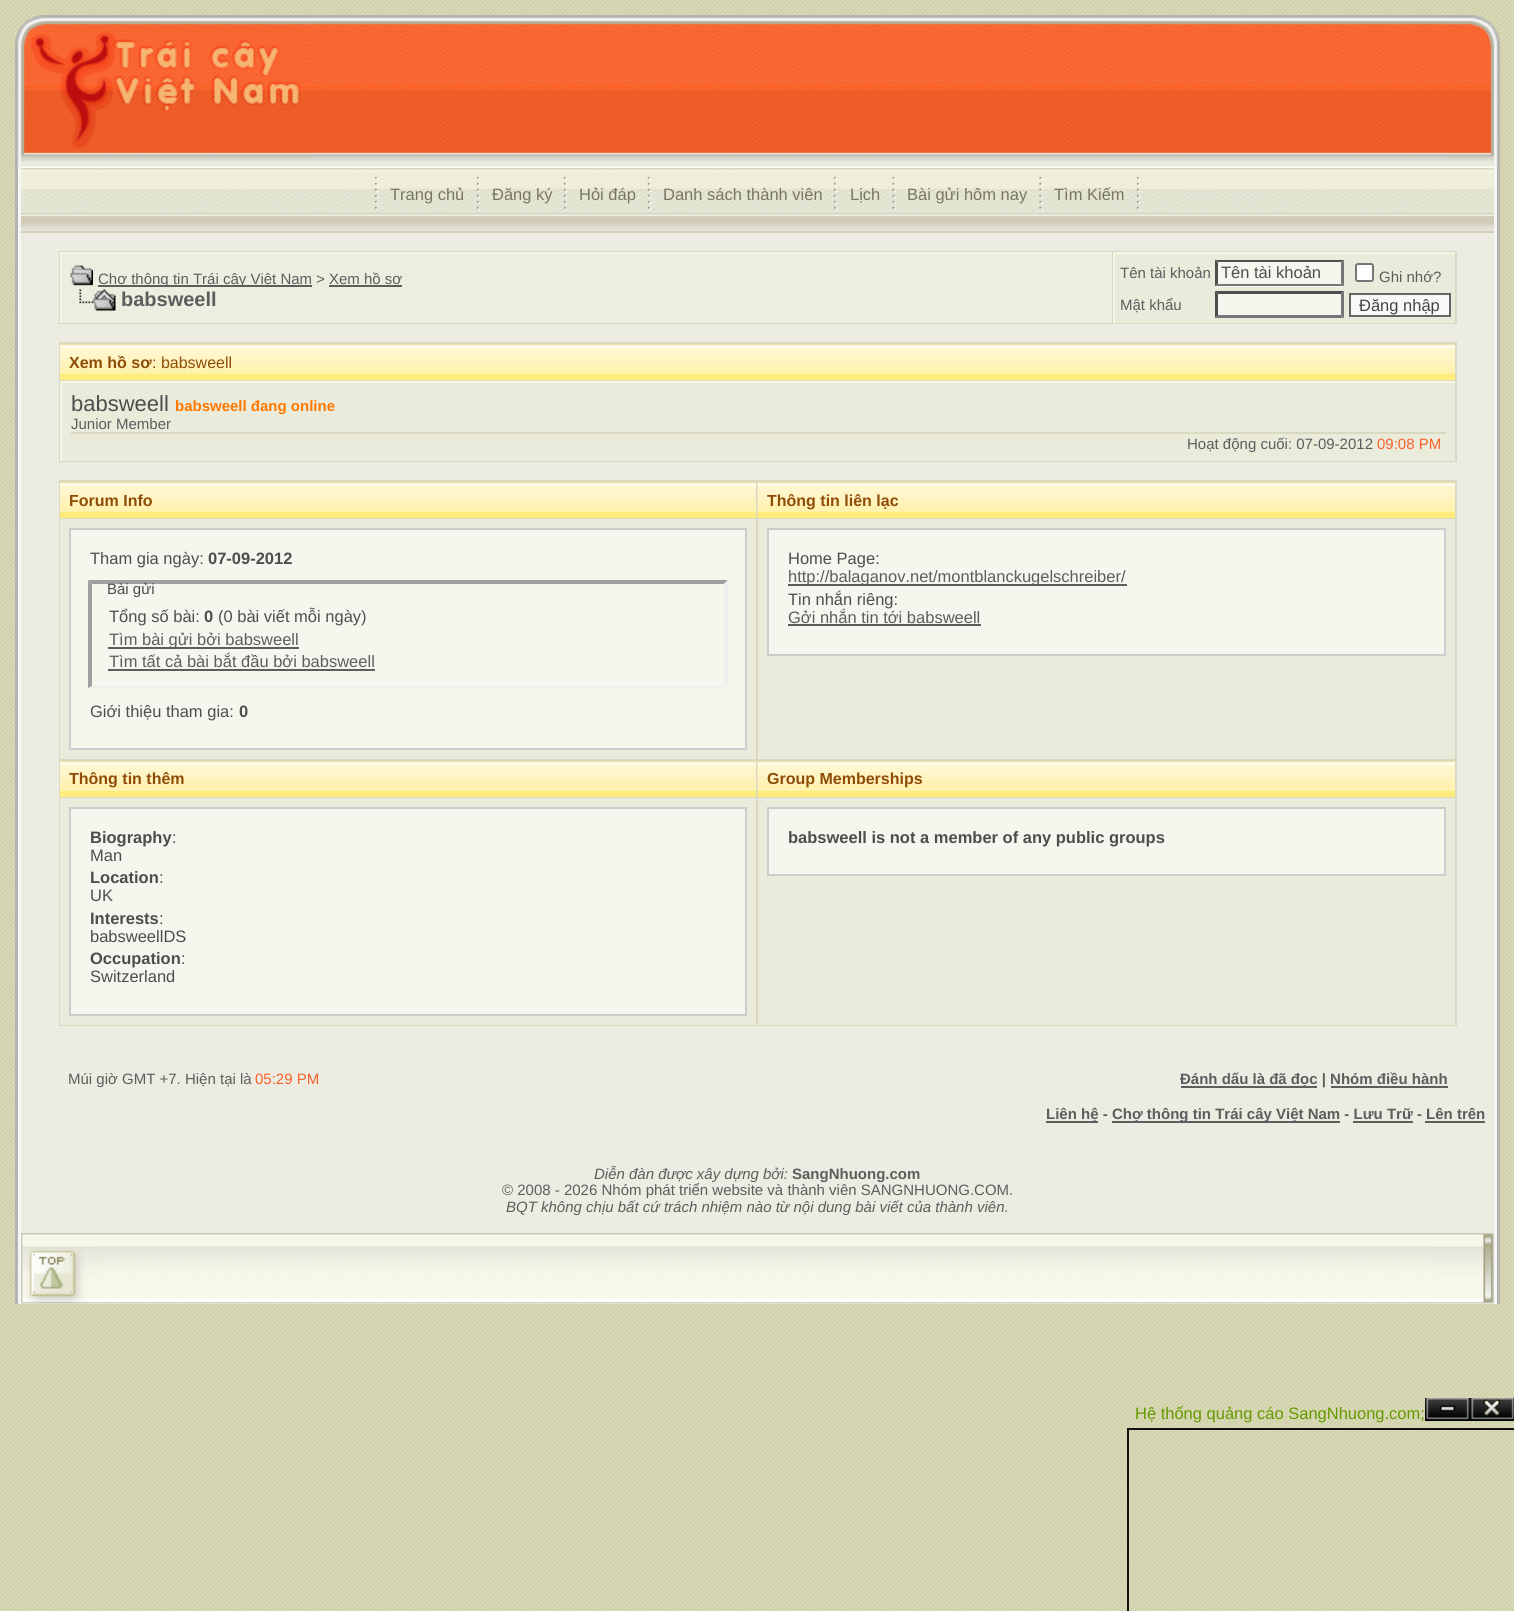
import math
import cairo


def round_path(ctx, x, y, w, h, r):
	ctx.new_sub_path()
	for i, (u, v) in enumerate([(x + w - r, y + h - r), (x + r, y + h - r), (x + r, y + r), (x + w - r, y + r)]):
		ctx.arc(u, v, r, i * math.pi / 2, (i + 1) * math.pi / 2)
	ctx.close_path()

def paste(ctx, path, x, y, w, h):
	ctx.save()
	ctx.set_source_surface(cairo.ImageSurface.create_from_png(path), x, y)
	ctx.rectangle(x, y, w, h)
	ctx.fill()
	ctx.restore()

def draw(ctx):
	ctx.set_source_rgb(1, 1, 1)
	ctx.paint()
	paste(ctx, 'media/1.png', 0, 0, 1514, 1611)
	paste(ctx, 'media/2.png', 310, 15, 1139, 153)
	paste(ctx, 'media/3.png', 15, 15, 296, 153)
	paste(ctx, 'media/4.png', 1449, 15, 51, 153)
	ctx.set_source_rgb(0.702, 0.706, 0.698)
	ctx.rectangle(1497, 168, 3, 1136)
	ctx.rectangle(15, 168, 3, 1136)
	ctx.fill()
	ctx.set_source_rgb(0.961, 0.961, 0.961)
	ctx.rectangle(1494, 168, 3, 1136)
	ctx.rectangle(18, 168, 3, 1136)
	ctx.fill()
	paste(ctx, 'media/5.png', 21, 168, 1473, 50)
	paste(ctx, 'media/6.png', 374, 176, 5, 35)
	ctx.select_font_face('Liberation Sans')
	ctx.set_font_size(16.5)
	ctx.set_source_rgb(0.463, 0.463, 0.388)
	ctx.move_to(390, 200)
	ctx.show_text('Trang chủ')
	paste(ctx, 'media/7.png', 476, 176, 5, 35)
	ctx.move_to(492, 200)
	ctx.show_text('Đăng ký')
	paste(ctx, 'media/8.png', 563, 176, 5, 35)
	ctx.move_to(579, 200)
	ctx.show_text('Hỏi đáp')
	paste(ctx, 'media/9.png', 647, 176, 5, 35)
	ctx.move_to(663, 200)
	ctx.show_text('Danh sách thành viên')
	paste(ctx, 'media/10.png', 833, 176, 5, 35)
	ctx.move_to(850, 200)
	ctx.show_text('Lịch')
	paste(ctx, 'media/11.png', 892, 176, 4, 35)
	ctx.move_to(907, 200)
	ctx.show_text('Bài gửi hôm nay')
	paste(ctx, 'media/12.png', 1039, 176, 4, 35)
	ctx.move_to(1054, 200)
	ctx.show_text('Tìm Kiếm')
	paste(ctx, 'media/13.png', 1136, 176, 5, 35)
	paste(ctx, 'media/14.png', 21, 217, 1473, 16)
	ctx.set_source_rgb(0.922, 0.922, 0.886)
	ctx.rectangle(21, 233, 1473, 1000)
	ctx.fill()
	ctx.set_source_rgb(0.851, 0.851, 0.761)
	ctx.rectangle(59, 251, 1398, 73)
	ctx.fill()
	ctx.set_source_rgb(0.933, 0.933, 0.878)
	ctx.rectangle(62, 254, 1050, 69)
	ctx.fill()
	ctx.set_source_rgb(0.961, 0.961, 0.906)
	ctx.rectangle(60, 252, 1052, 2)
	ctx.rectangle(60, 252, 2, 71)
	ctx.fill()
	paste(ctx, 'media/15.png', 70, 265, 23, 21)
	ctx.set_source_rgb(0.365, 0.365, 0.369)
	ctx.rectangle(98, 285, 214, 2)
	ctx.fill()
	ctx.set_font_size(15)
	ctx.move_to(98, 284)
	ctx.show_text('Chợ thông tin Trái cây Việt Nam')
	ctx.move_to(316, 284)
	ctx.show_text('> Xem hồ sơ')
	ctx.rectangle(329, 285, 73, 2)
	ctx.fill()
	paste(ctx, 'media/16.png', 79, 289, 37, 22)
	ctx.select_font_face('Liberation Sans', cairo.FONT_SLANT_NORMAL, cairo.FONT_WEIGHT_BOLD)
	ctx.set_font_size(20)
	ctx.move_to(121, 306)
	ctx.show_text('babsweell')
	ctx.set_source_rgb(0.918, 0.918, 0.859)
	ctx.rectangle(1115, 254, 340, 69)
	ctx.fill()
	ctx.set_source_rgb(0.961, 0.961, 0.906)
	ctx.rectangle(1113, 252, 342, 2)
	ctx.rectangle(1113, 252, 2, 71)
	ctx.fill()
	ctx.select_font_face('Liberation Sans')
	ctx.set_font_size(15)
	ctx.set_source_rgb(0.365, 0.365, 0.369)
	ctx.move_to(1120, 278)
	ctx.show_text('Tên tài khoản')
	ctx.set_source_rgb(0.961, 0.961, 0.937)
	ctx.rectangle(1215, 260, 129, 27)
	ctx.fill()
	ctx.set_source_rgb(0.31, 0.31, 0.31)
	ctx.new_path()
	ctx.move_to(1215, 260)
	ctx.line_to(1344, 260)
	ctx.line_to(1341, 262)
	ctx.line_to(1218, 262)
	ctx.close_path()
	ctx.fill()
	ctx.set_source_rgb(0.463, 0.463, 0.463)
	ctx.new_path()
	ctx.move_to(1344, 259.5)
	ctx.line_to(1344, 286.5)
	ctx.line_to(1341, 283.5)
	ctx.line_to(1341, 262.5)
	ctx.close_path()
	ctx.fill()
	ctx.new_path()
	ctx.move_to(1344, 286)
	ctx.line_to(1215, 286)
	ctx.line_to(1218, 284)
	ctx.line_to(1341, 284)
	ctx.close_path()
	ctx.fill()
	ctx.set_source_rgb(0.31, 0.31, 0.31)
	ctx.new_path()
	ctx.move_to(1215, 286.5)
	ctx.line_to(1215, 259.5)
	ctx.line_to(1218, 262.5)
	ctx.line_to(1218, 283.5)
	ctx.close_path()
	ctx.fill()
	ctx.set_font_size(16.5)
	ctx.set_source_rgb(0.302, 0.302, 0.302)
	ctx.move_to(1221, 278)
	ctx.show_text('Tên tài khoản')
	ctx.set_source_rgb(1, 1, 1)
	round_path(ctx, 1356, 264, 17, 17, 2)
	ctx.fill_preserve()
	ctx.set_source_rgb(0.463, 0.463, 0.463)
	ctx.stroke()
	ctx.set_font_size(15)
	ctx.set_source_rgb(0.365, 0.365, 0.369)
	ctx.move_to(1379, 282)
	ctx.show_text('Ghi nhớ?')
	ctx.move_to(1120, 310)
	ctx.show_text('Mật khẩu')
	ctx.set_source_rgb(0.961, 0.961, 0.937)
	ctx.rectangle(1215, 291, 129, 27)
	ctx.fill()
	ctx.set_source_rgb(0.31, 0.31, 0.31)
	ctx.new_path()
	ctx.move_to(1215, 291)
	ctx.line_to(1344, 291)
	ctx.line_to(1341, 294)
	ctx.line_to(1218, 294)
	ctx.close_path()
	ctx.fill()
	ctx.set_source_rgb(0.463, 0.463, 0.463)
	ctx.new_path()
	ctx.move_to(1344, 291)
	ctx.line_to(1344, 318)
	ctx.line_to(1341, 315)
	ctx.line_to(1341, 294)
	ctx.close_path()
	ctx.fill()
	ctx.new_path()
	ctx.move_to(1344, 318)
	ctx.line_to(1215, 318)
	ctx.line_to(1218, 315)
	ctx.line_to(1341, 315)
	ctx.close_path()
	ctx.fill()
	ctx.set_source_rgb(0.31, 0.31, 0.31)
	ctx.new_path()
	ctx.move_to(1215, 318)
	ctx.line_to(1215, 291)
	ctx.line_to(1218, 294)
	ctx.line_to(1218, 315)
	ctx.close_path()
	ctx.fill()
	ctx.set_source_rgb(0.969, 0.969, 0.969)
	ctx.rectangle(1350, 294, 100, 22)
	ctx.fill_preserve()
	ctx.set_source_rgb(0.396, 0.396, 0.396)
	ctx.stroke()
	ctx.set_font_size(16.5)
	ctx.set_source_rgb(0.271, 0.267, 0.271)
	ctx.move_to(1359, 311)
	ctx.show_text('Ðăng nhập')
	ctx.set_source_rgb(0.851, 0.851, 0.761)
	ctx.rectangle(59, 342, 1398, 120)
	ctx.fill()
	ctx.set_source_rgb(1, 0.922, 0.478)
	ctx.rectangle(60, 375, 1395, 5)
	ctx.fill()
	paste(ctx, 'media/17.png', 60, 343, 1395, 32)
	ctx.select_font_face('Liberation Sans', cairo.FONT_SLANT_NORMAL, cairo.FONT_WEIGHT_BOLD)
	ctx.set_font_size(16)
	ctx.set_source_rgb(0.557, 0.298, 0.031)
	ctx.move_to(69, 368)
	ctx.show_text('Xem hồ sơ')
	ctx.select_font_face('Liberation Sans')
	ctx.move_to(152, 368)
	ctx.show_text(': babsweell')
	ctx.set_source_rgb(0.918, 0.918, 0.859)
	ctx.rectangle(62, 383, 1393, 78)
	ctx.fill()
	ctx.set_source_rgb(0.961, 0.961, 0.906)
	ctx.rectangle(60, 381, 1395, 2)
	ctx.rectangle(60, 381, 2, 80)
	ctx.fill()
	ctx.set_source_rgb(0.851, 0.851, 0.761)
	ctx.rectangle(71, 432, 1375, 2)
	ctx.fill()
	ctx.set_font_size(22)
	ctx.set_source_rgb(0.302, 0.302, 0.302)
	ctx.move_to(71, 411)
	ctx.show_text('babsweell')
	ctx.select_font_face('Liberation Sans', cairo.FONT_SLANT_NORMAL, cairo.FONT_WEIGHT_BOLD)
	ctx.set_font_size(15)
	ctx.set_source_rgb(1, 0.471, 0)
	ctx.move_to(175, 411)
	ctx.show_text('babsweell đang online')
	ctx.select_font_face('Liberation Sans')
	ctx.set_source_rgb(0.365, 0.365, 0.369)
	ctx.move_to(71, 429)
	ctx.show_text('Junior Member')
	ctx.move_to(1187, 449)
	ctx.show_text('Hoạt động cuối: 07-09-2012')
	ctx.set_source_rgb(0.976, 0.38, 0.173)
	ctx.move_to(1377, 449)
	ctx.show_text('09:08 PM')
	ctx.set_source_rgb(0.851, 0.851, 0.761)
	ctx.rectangle(59, 480, 1398, 546)
	ctx.fill()
	ctx.set_source_rgb(1, 0.922, 0.478)
	ctx.rectangle(60, 513, 696, 5)
	ctx.fill()
	paste(ctx, 'media/18.png', 60, 481, 696, 32)
	ctx.select_font_face('Liberation Sans', cairo.FONT_SLANT_NORMAL, cairo.FONT_WEIGHT_BOLD)
	ctx.set_font_size(16)
	ctx.set_source_rgb(0.557, 0.298, 0.031)
	ctx.move_to(69, 506)
	ctx.show_text('Forum Info')
	ctx.set_source_rgb(1, 0.922, 0.478)
	ctx.rectangle(758, 517, 697, 1)
	ctx.fill()
	paste(ctx, 'media/19.png', 757, 481, 698, 37)
	ctx.set_source_rgb(0.557, 0.298, 0.031)
	ctx.move_to(767, 506)
	ctx.show_text('Thông tin liên lạc')
	ctx.set_source_rgb(0.918, 0.918, 0.859)
	ctx.rectangle(60, 519, 696, 240)
	ctx.fill()
	ctx.set_source_rgb(0.961, 0.961, 0.937)
	ctx.rectangle(70, 529, 676, 220)
	ctx.fill_preserve()
	ctx.set_source_rgb(0.8, 0.8, 0.8)
	ctx.stroke()
	ctx.select_font_face('Liberation Sans')
	ctx.set_font_size(16.5)
	ctx.set_source_rgb(0.302, 0.302, 0.302)
	ctx.move_to(90, 564)
	ctx.show_text('Tham gia ngày:')
	ctx.select_font_face('Liberation Sans', cairo.FONT_SLANT_NORMAL, cairo.FONT_WEIGHT_BOLD)
	ctx.move_to(208, 564)
	ctx.show_text('07-09-2012')
	ctx.set_source_rgb(0.624, 0.624, 0.624)
	ctx.new_path()
	ctx.move_to(88, 580)
	ctx.line_to(728, 580)
	ctx.line_to(724, 584)
	ctx.line_to(92, 584)
	ctx.close_path()
	ctx.fill()
	ctx.set_source_rgb(0.937, 0.937, 0.937)
	ctx.new_path()
	ctx.move_to(728, 580)
	ctx.line_to(728, 688)
	ctx.line_to(724, 686)
	ctx.line_to(724, 584)
	ctx.close_path()
	ctx.fill()
	ctx.new_path()
	ctx.move_to(728, 688)
	ctx.line_to(88, 688)
	ctx.line_to(92, 686)
	ctx.line_to(724, 686)
	ctx.close_path()
	ctx.fill()
	ctx.set_source_rgb(0.624, 0.624, 0.624)
	ctx.new_path()
	ctx.move_to(88, 688)
	ctx.line_to(88, 580)
	ctx.line_to(92, 584)
	ctx.line_to(92, 686)
	ctx.close_path()
	ctx.fill()
	ctx.select_font_face('Liberation Sans')
	ctx.set_font_size(15)
	ctx.set_source_rgb(0.302, 0.302, 0.302)
	ctx.move_to(107, 594)
	ctx.show_text('Bài gửi')
	ctx.set_font_size(16.5)
	ctx.move_to(109, 622)
	ctx.show_text('Tổng số bài:')
	ctx.select_font_face('Liberation Sans', cairo.FONT_SLANT_NORMAL, cairo.FONT_WEIGHT_BOLD)
	ctx.move_to(204, 622)
	ctx.show_text('0')
	ctx.select_font_face('Liberation Sans')
	ctx.move_to(218, 622)
	ctx.show_text('(0 bài viết mỗi ngày)')
	ctx.set_source_rgb(0.365, 0.365, 0.369)
	ctx.rectangle(108, 647, 191, 2)
	ctx.fill()
	ctx.move_to(109, 645)
	ctx.show_text('Tìm bài gửi bởi babsweell')
	ctx.move_to(109, 667)
	ctx.show_text('Tìm tất cả bài bắt đầu bởi babsweell')
	ctx.rectangle(108, 669, 267, 2)
	ctx.fill()
	ctx.set_source_rgb(0.302, 0.302, 0.302)
	ctx.move_to(90, 717)
	ctx.show_text('Giới thiệu tham gia:')
	ctx.select_font_face('Liberation Sans', cairo.FONT_SLANT_NORMAL, cairo.FONT_WEIGHT_BOLD)
	ctx.move_to(239, 717)
	ctx.show_text('0')
	ctx.set_source_rgb(0.918, 0.918, 0.859)
	ctx.rectangle(758, 519, 697, 240)
	ctx.fill()
	ctx.set_source_rgb(0.961, 0.961, 0.937)
	ctx.rectangle(768, 529, 677, 126)
	ctx.fill_preserve()
	ctx.set_source_rgb(0.8, 0.8, 0.8)
	ctx.stroke()
	ctx.select_font_face('Liberation Sans')
	ctx.set_source_rgb(0.302, 0.302, 0.302)
	ctx.move_to(788, 564)
	ctx.show_text('Home Page:')
	ctx.set_source_rgb(0.365, 0.365, 0.369)
	ctx.rectangle(788, 584, 339, 2)
	ctx.fill()
	ctx.move_to(788, 582)
	ctx.show_text('http://balaganov.net/montblanckugelschreiber/')
	ctx.set_source_rgb(0.302, 0.302, 0.302)
	ctx.move_to(788, 605)
	ctx.show_text('Tin nhắn riêng:')
	ctx.set_source_rgb(0.365, 0.365, 0.369)
	ctx.move_to(788, 623)
	ctx.show_text('Gởi nhắn tin tới babsweell')
	ctx.rectangle(788, 624, 193, 2)
	ctx.fill()
	ctx.set_source_rgb(1, 0.922, 0.478)
	ctx.rectangle(60, 792, 696, 5)
	ctx.fill()
	paste(ctx, 'media/20.png', 60, 760, 696, 32)
	ctx.select_font_face('Liberation Sans', cairo.FONT_SLANT_NORMAL, cairo.FONT_WEIGHT_BOLD)
	ctx.set_font_size(16)
	ctx.set_source_rgb(0.557, 0.298, 0.031)
	ctx.move_to(69, 784)
	ctx.show_text('Thông tin thêm')
	ctx.set_source_rgb(1, 0.922, 0.478)
	ctx.rectangle(758, 796, 697, 1)
	ctx.fill()
	paste(ctx, 'media/21.png', 757, 760, 698, 37)
	ctx.set_source_rgb(0.557, 0.298, 0.031)
	ctx.move_to(767, 784)
	ctx.show_text('Group Memberships')
	ctx.set_source_rgb(0.918, 0.918, 0.859)
	ctx.rectangle(60, 798, 696, 227)
	ctx.fill()
	ctx.set_source_rgb(0.961, 0.961, 0.937)
	ctx.rectangle(70, 808, 676, 207)
	ctx.fill_preserve()
	ctx.set_source_rgb(0.8, 0.8, 0.8)
	ctx.stroke()
	ctx.set_font_size(16.5)
	ctx.set_source_rgb(0.302, 0.302, 0.302)
	ctx.move_to(90, 843)
	ctx.show_text('Biography')
	ctx.select_font_face('Liberation Sans')
	ctx.move_to(172, 843)
	ctx.show_text(':')
	ctx.move_to(90, 861)
	ctx.show_text('Man')
	ctx.select_font_face('Liberation Sans', cairo.FONT_SLANT_NORMAL, cairo.FONT_WEIGHT_BOLD)
	ctx.move_to(90, 883)
	ctx.show_text('Location')
	ctx.select_font_face('Liberation Sans')
	ctx.move_to(159, 883)
	ctx.show_text(':')
	ctx.move_to(90, 901)
	ctx.show_text('UK')
	ctx.select_font_face('Liberation Sans', cairo.FONT_SLANT_NORMAL, cairo.FONT_WEIGHT_BOLD)
	ctx.move_to(90, 924)
	ctx.show_text('Interests')
	ctx.select_font_face('Liberation Sans')
	ctx.move_to(159, 924)
	ctx.show_text(':')
	ctx.move_to(90, 942)
	ctx.show_text('babsweellDS')
	ctx.select_font_face('Liberation Sans', cairo.FONT_SLANT_NORMAL, cairo.FONT_WEIGHT_BOLD)
	ctx.move_to(90, 964)
	ctx.show_text('Occupation')
	ctx.select_font_face('Liberation Sans')
	ctx.move_to(181, 964)
	ctx.show_text(':')
	ctx.move_to(90, 982)
	ctx.show_text('Switzerland')
	ctx.set_source_rgb(0.918, 0.918, 0.859)
	ctx.rectangle(758, 798, 697, 227)
	ctx.fill()
	ctx.set_source_rgb(0.961, 0.961, 0.937)
	ctx.rectangle(768, 808, 677, 67)
	ctx.fill_preserve()
	ctx.set_source_rgb(0.8, 0.8, 0.8)
	ctx.stroke()
	ctx.select_font_face('Liberation Sans', cairo.FONT_SLANT_NORMAL, cairo.FONT_WEIGHT_BOLD)
	ctx.set_source_rgb(0.302, 0.302, 0.302)
	ctx.move_to(788, 843)
	ctx.show_text('babsweell is not a member of any public groups')
	ctx.select_font_face('Liberation Sans')
	ctx.set_font_size(15)
	ctx.set_source_rgb(0.365, 0.365, 0.369)
	ctx.move_to(68, 1084)
	ctx.show_text('Múi giờ GMT +7. Hiện tại là')
	ctx.set_source_rgb(0.976, 0.38, 0.173)
	ctx.move_to(255, 1084)
	ctx.show_text('05:29 PM')
	ctx.set_source_rgb(0.365, 0.365, 0.369)
	ctx.rectangle(1181, 1086, 136, 2)
	ctx.fill()
	ctx.select_font_face('Liberation Sans', cairo.FONT_SLANT_NORMAL, cairo.FONT_WEIGHT_BOLD)
	ctx.move_to(1180, 1084)
	ctx.show_text('Đánh dấu là đã đọc | Nhóm điều hành')
	ctx.rectangle(1331, 1086, 117, 2)
	ctx.fill()
	ctx.select_font_face('Liberation Sans')
	ctx.set_font_size(16.5)
	ctx.set_source_rgb(0.4, 0.6, 0)
	ctx.move_to(1135, 1419)
	ctx.show_text('Hệ thống quảng cáo SangNhuong.com;')
	paste(ctx, 'media/22.png', 1425, 1398, 45, 23)
	paste(ctx, 'media/23.png', 1470, 1398, 44, 23)
	ctx.set_source_rgb(0.067, 0.067, 0.067)
	ctx.rectangle(1127, 1428, 387, 2)
	ctx.rectangle(1127, 1428, 2, 183)
	ctx.fill()
	ctx.set_source_rgb(0.365, 0.365, 0.369)
	ctx.rectangle(1046, 1121, 52, 2)
	ctx.fill()
	ctx.select_font_face('Liberation Sans', cairo.FONT_SLANT_NORMAL, cairo.FONT_WEIGHT_BOLD)
	ctx.set_font_size(15)
	ctx.move_to(1046, 1119)
	ctx.show_text('Liên hệ -')
	ctx.rectangle(1112, 1121, 228, 2)
	ctx.fill()
	ctx.move_to(1112, 1119)
	ctx.show_text('Chợ thông tin Trái cây Việt Nam - Lưu Trữ - Lên trên')
	ctx.rectangle(1353, 1121, 60, 2)
	ctx.fill()
	ctx.rectangle(1425, 1121, 60, 2)
	ctx.fill()
	ctx.select_font_face('Liberation Sans', cairo.FONT_SLANT_ITALIC)
	ctx.move_to(594, 1179)
	ctx.show_text('Diễn đàn được xây dựng bởi:')
	ctx.select_font_face('Liberation Sans', cairo.FONT_SLANT_NORMAL, cairo.FONT_WEIGHT_BOLD)
	ctx.move_to(792, 1179)
	ctx.show_text('SangNhuong.com')
	ctx.select_font_face('Liberation Sans')
	ctx.move_to(502, 1195)
	ctx.show_text('© 2008 - 2026 Nhóm phát triển website và thành viên SANGNHUONG.COM.')
	ctx.select_font_face('Liberation Sans', cairo.FONT_SLANT_ITALIC)
	ctx.move_to(506, 1212)
	ctx.show_text('BQT không chịu bất cứ trách nhiệm nào từ nội dung bài viết của thành viên.')
	ctx.set_source_rgb(0.969, 0.969, 0.918)
	ctx.rectangle(21, 1303, 1473, 1)
	ctx.fill()
	paste(ctx, 'media/24.png', 21, 1233, 78, 71)
	paste(ctx, 'media/25.png', 99, 1233, 1335, 71)
	paste(ctx, 'media/26.png', 1434, 1233, 60, 71)


surface = cairo.ImageSurface(cairo.FORMAT_RGB24, 1514, 1611)
ctx = cairo.Context(surface)
options = cairo.FontOptions()
options.set_hint_metrics(cairo.HINT_METRICS_OFF)
options.set_hint_style(cairo.HINT_STYLE_NONE)
ctx.set_font_options(options)
ctx.set_miter_limit(4)
draw(ctx)
surface.write_to_png('image.png')
